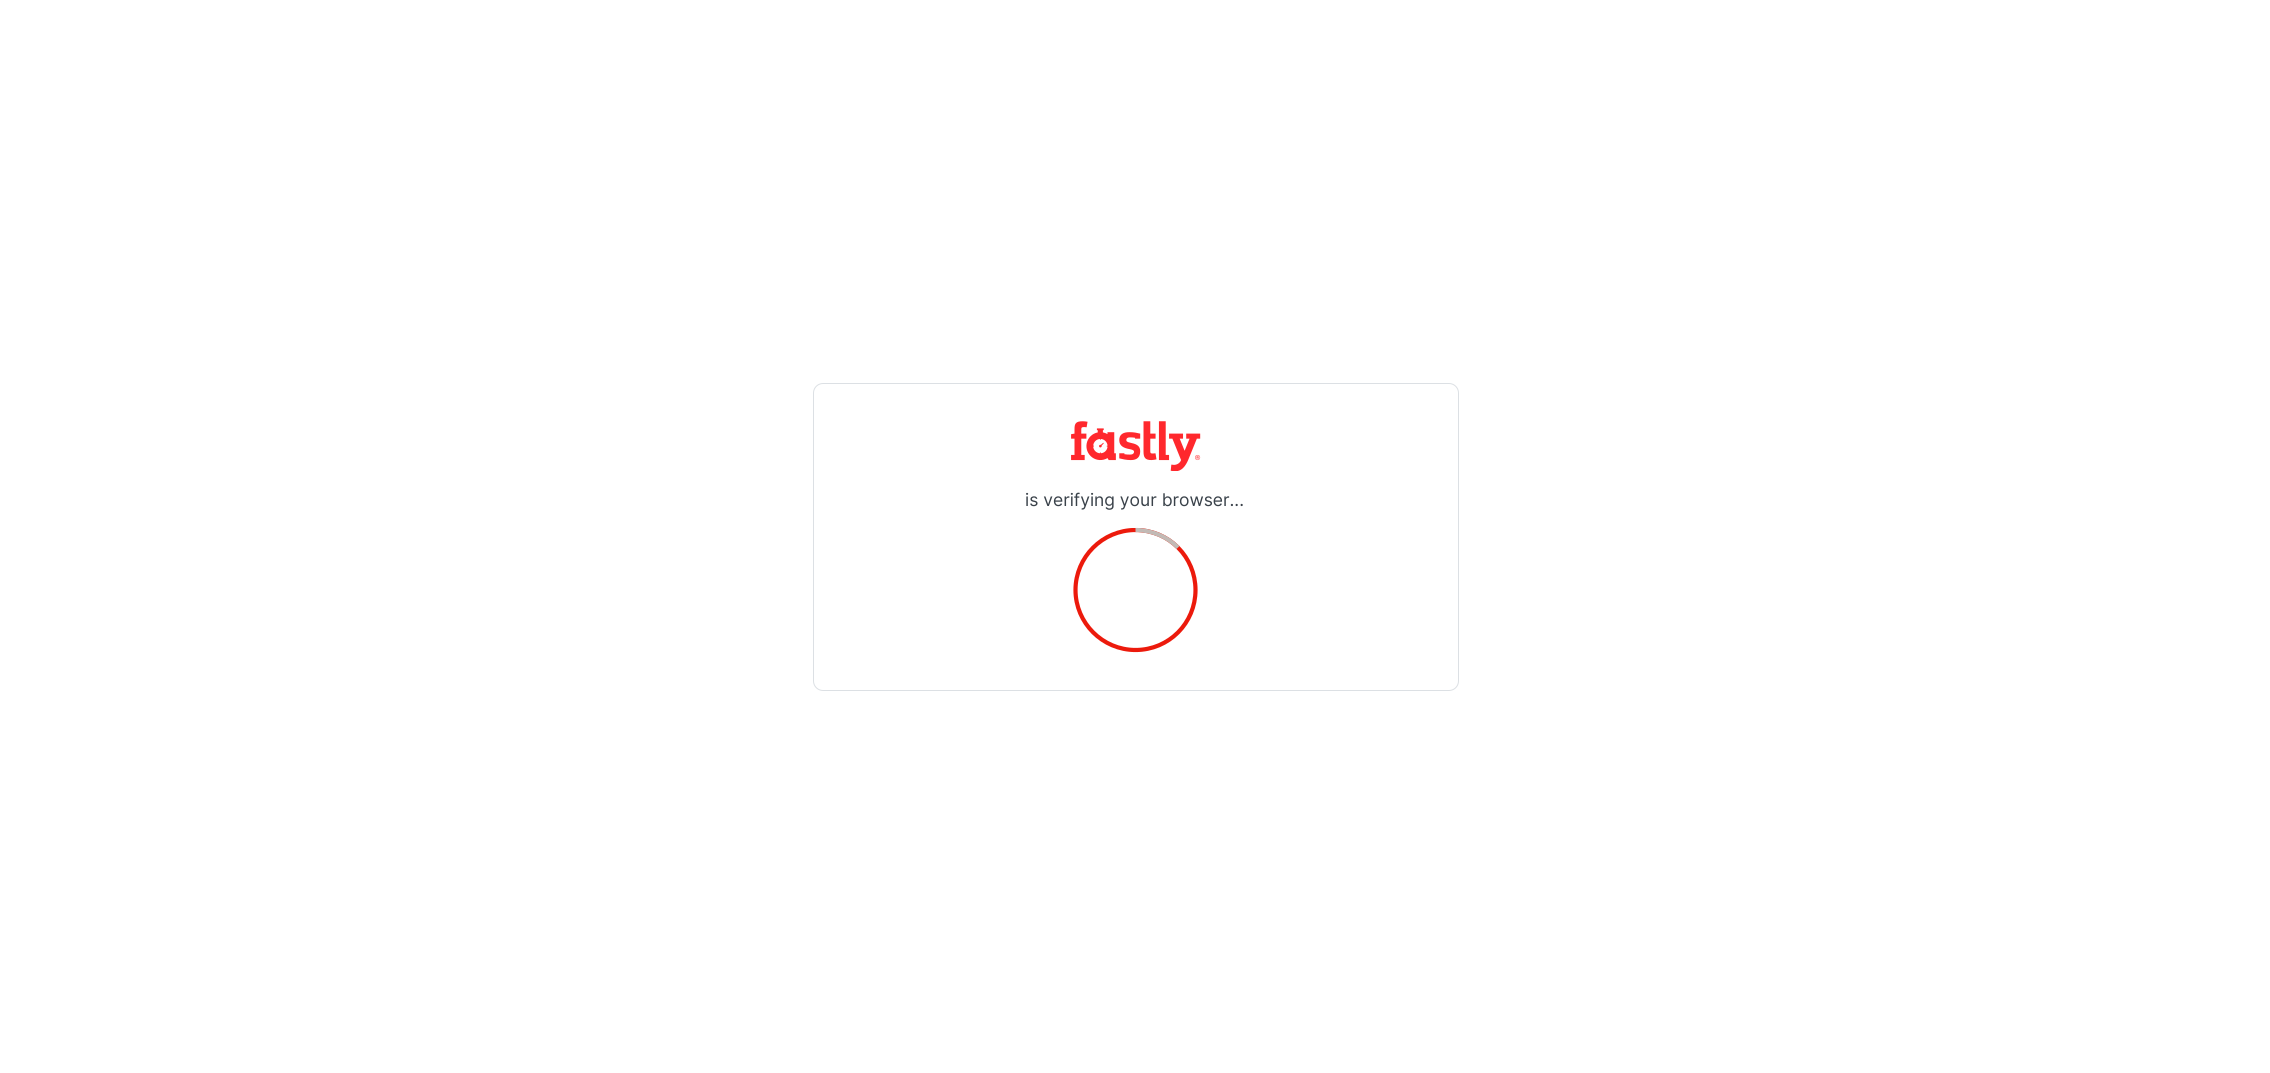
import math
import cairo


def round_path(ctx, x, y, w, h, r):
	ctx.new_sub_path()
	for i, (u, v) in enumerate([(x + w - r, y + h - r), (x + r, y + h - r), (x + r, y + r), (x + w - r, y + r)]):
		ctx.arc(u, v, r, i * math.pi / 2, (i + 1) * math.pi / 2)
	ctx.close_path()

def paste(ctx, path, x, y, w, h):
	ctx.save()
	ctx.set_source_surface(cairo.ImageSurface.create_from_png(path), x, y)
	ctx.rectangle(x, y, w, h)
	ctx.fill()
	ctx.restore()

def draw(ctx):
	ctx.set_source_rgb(1, 1, 1)
	ctx.paint()
	round_path(ctx, 813.5, 383.5, 645, 307, 9.5)
	ctx.set_source_rgb(0.863, 0.878, 0.894)
	ctx.set_line_width(1)
	ctx.stroke()
	paste(ctx, 'media/1.png', 1071, 421, 130, 50)
	ctx.select_font_face('Inter')
	ctx.set_font_size(17.5)
	ctx.set_source_rgb(0.227, 0.259, 0.29)
	ctx.move_to(1025, 506)
	ctx.show_text('is verifying your browser...')
	ctx.save()
	ctx.rectangle(851, 528, 569, 125)
	ctx.clip()
	ctx.new_path()
	ctx.move_to(1075.5, 590)
	ctx.curve_to(1075.5, 557, 1102.5, 530, 1135.5, 530)
	ctx.curve_to(1169, 530, 1195.5, 557, 1195.5, 590)
	ctx.curve_to(1195.5, 623, 1169, 650, 1135.5, 650)
	ctx.curve_to(1102.5, 650, 1075.5, 623, 1075.5, 590)
	ctx.close_path()
	ctx.set_source_rgb(0.922, 0.102, 0.047)
	ctx.set_line_width(4.2)
	ctx.stroke()
	ctx.restore()
	ctx.new_path()
	ctx.move_to(1178, 547.5)
	ctx.curve_to(1167, 536.5, 1151.5, 530, 1135.5, 530)
	ctx.set_source_rgb(0.761, 0.729, 0.71)
	ctx.set_line_width(4.2)
	ctx.stroke()


surface = cairo.ImageSurface(cairo.FORMAT_RGB24, 2270, 1073)
ctx = cairo.Context(surface)
options = cairo.FontOptions()
options.set_hint_metrics(cairo.HINT_METRICS_OFF)
options.set_hint_style(cairo.HINT_STYLE_NONE)
ctx.set_font_options(options)
ctx.set_miter_limit(4)
draw(ctx)
surface.write_to_png('image.png')
